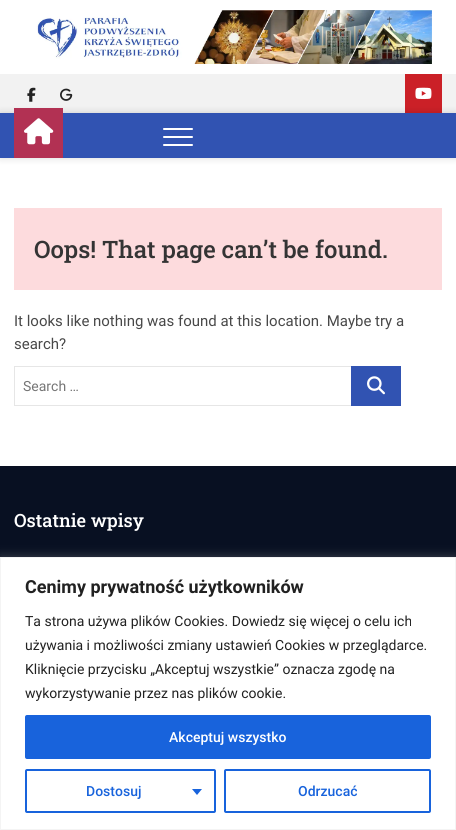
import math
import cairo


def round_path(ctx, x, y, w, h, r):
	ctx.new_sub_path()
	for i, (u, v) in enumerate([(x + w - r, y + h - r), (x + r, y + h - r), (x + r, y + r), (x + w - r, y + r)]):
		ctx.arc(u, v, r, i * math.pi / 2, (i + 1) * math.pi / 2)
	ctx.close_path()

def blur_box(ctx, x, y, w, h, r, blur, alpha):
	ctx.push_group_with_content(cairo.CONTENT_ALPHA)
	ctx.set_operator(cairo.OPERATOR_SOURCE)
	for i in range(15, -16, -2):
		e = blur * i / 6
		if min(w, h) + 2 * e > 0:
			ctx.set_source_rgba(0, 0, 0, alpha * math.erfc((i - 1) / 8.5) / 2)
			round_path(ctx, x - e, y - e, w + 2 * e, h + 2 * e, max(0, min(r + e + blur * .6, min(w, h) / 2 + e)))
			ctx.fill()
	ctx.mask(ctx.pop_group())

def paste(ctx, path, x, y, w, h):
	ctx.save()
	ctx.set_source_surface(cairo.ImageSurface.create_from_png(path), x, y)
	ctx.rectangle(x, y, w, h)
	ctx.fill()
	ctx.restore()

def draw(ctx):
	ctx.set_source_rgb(1, 1, 1)
	ctx.paint()
	paste(ctx, 'media/1.png', 36, 10, 396, 54)
	ctx.set_source_rgb(0.949, 0.949, 0.949)
	ctx.rectangle(0, 74, 456, 39)
	ctx.fill()
	paste(ctx, 'media/2.png', 27, 87, 9, 15)
	paste(ctx, 'media/3.png', 60, 88, 13, 13)
	ctx.set_source_rgb(0.796, 0.125, 0.153)
	ctx.rectangle(405, 74, 37, 39)
	ctx.fill()
	paste(ctx, 'media/4.png', 415, 87, 17, 12)
	ctx.set_source_rgb(0, 0, 0)
	blur_box(ctx, 0, 113, 456, 45, 0, 4, 0.15)
	ctx.set_source_rgb(0.192, 0.325, 0.698)
	ctx.rectangle(0, 113, 456, 45)
	ctx.fill()
	ctx.set_source_rgb(0.698, 0.192, 0.325)
	ctx.rectangle(14, 108, 49, 50)
	ctx.fill()
	paste(ctx, 'media/5.png', 24, 118, 30, 27)
	ctx.set_source_rgb(1, 1, 1)
	round_path(ctx, 163, 136, 30, 2, 1)
	ctx.fill()
	round_path(ctx, 163, 128, 30, 2, 1)
	ctx.fill()
	round_path(ctx, 163, 144, 30, 2, 1)
	ctx.fill()
	ctx.set_source_rgb(0.992, 0.859, 0.867)
	ctx.rectangle(14, 208, 428, 82)
	ctx.fill()
	ctx.select_font_face('Roboto Slab Medium')
	ctx.set_font_size(24)
	ctx.set_source_rgb(0.204, 0.204, 0.204)
	ctx.move_to(34, 258)
	ctx.show_text('Oops! That page can’t be found.')
	ctx.select_font_face('Roboto')
	ctx.set_font_size(15)
	ctx.set_source_rgb(0.282, 0.282, 0.282)
	ctx.move_to(14, 326)
	ctx.show_text('It looks like nothing was found at this location. Maybe try a')
	ctx.move_to(14, 349)
	ctx.show_text('search?')
	ctx.rectangle(14.5, 366.5, 337, 39)
	ctx.set_source_rgb(0.902, 0.902, 0.902)
	ctx.set_line_width(1)
	ctx.stroke()
	ctx.set_font_size(14)
	ctx.set_source_rgb(0.459, 0.459, 0.459)
	ctx.move_to(23, 391)
	ctx.show_text('Search …')
	ctx.set_source_rgb(0.192, 0.325, 0.698)
	ctx.rectangle(351, 366, 50, 40)
	ctx.fill()
	paste(ctx, 'media/6.png', 367, 376, 18, 19)
	ctx.set_source_rgb(0.035, 0.063, 0.133)
	ctx.rectangle(0, 467, 456, 90)
	ctx.fill()
	ctx.set_source_rgb(0.035, 0.059, 0.125)
	ctx.rectangle(0, 466, 456, 1)
	ctx.fill()
	ctx.select_font_face('Roboto Slab Medium')
	ctx.set_font_size(18.25)
	ctx.set_source_rgb(1, 1, 1)
	ctx.move_to(14, 527)
	ctx.show_text('Ostatnie wpisy')
	ctx.set_source_rgb(0.675, 0.671, 0.671)
	blur_box(ctx, 0, 556, 456, 273, 0, 5, 0.3)
	ctx.set_source_rgb(1, 1, 1)
	ctx.rectangle(0.5, 557.5, 455, 272)
	ctx.fill_preserve()
	ctx.set_source_rgb(0.957, 0.957, 0.957)
	ctx.stroke()
	ctx.select_font_face('Roboto', cairo.FONT_SLANT_NORMAL, cairo.FONT_WEIGHT_BOLD)
	ctx.set_font_size(18)
	ctx.set_source_rgb(0.129, 0.129, 0.129)
	ctx.move_to(25, 593)
	ctx.show_text('Cenimy prywatność użytkowników')
	ctx.select_font_face('Roboto')
	ctx.set_font_size(14)
	for x, y, s in [
		(25, 626, 'Ta strona używa plików Cookies. Dowiedz się więcej o celu ich'),
		(25, 650, 'używania i możliwości zmiany ustawień Cookies w przeglądarce.'),
		(25, 674, 'Kliknięcie przycisku „Akceptuj wszystkie” oznacza zgodę na'),
		(25, 698, 'wykorzystywanie przez nas plików cookie.'),
	]:
		ctx.move_to(x, y)
		ctx.show_text(s)
	ctx.set_source_rgb(0.094, 0.388, 0.863)
	round_path(ctx, 26, 716, 404, 42, 1)
	ctx.fill_preserve()
	ctx.set_line_width(2)
	ctx.stroke()
	ctx.select_font_face('Roboto Medium')
	ctx.set_source_rgb(1, 1, 1)
	ctx.move_to(169, 742)
	ctx.show_text('Akceptuj wszystko')
	round_path(ctx, 26, 770, 189, 42, 1)
	ctx.set_source_rgb(0.094, 0.388, 0.863)
	ctx.stroke()
	ctx.move_to(86, 796)
	ctx.show_text('Dostosuj')
	ctx.new_path()
	ctx.move_to(192, 789)
	ctx.line_to(202, 789)
	ctx.line_to(197, 795)
	ctx.close_path()
	ctx.fill()
	round_path(ctx, 225, 770, 205, 42, 1)
	ctx.stroke()
	ctx.move_to(298, 796)
	ctx.show_text('Odrzucać')


surface = cairo.ImageSurface(cairo.FORMAT_RGB24, 456, 830)
ctx = cairo.Context(surface)
options = cairo.FontOptions()
options.set_hint_metrics(cairo.HINT_METRICS_OFF)
options.set_hint_style(cairo.HINT_STYLE_NONE)
ctx.set_font_options(options)
ctx.set_miter_limit(4)
draw(ctx)
surface.write_to_png('image.png')
